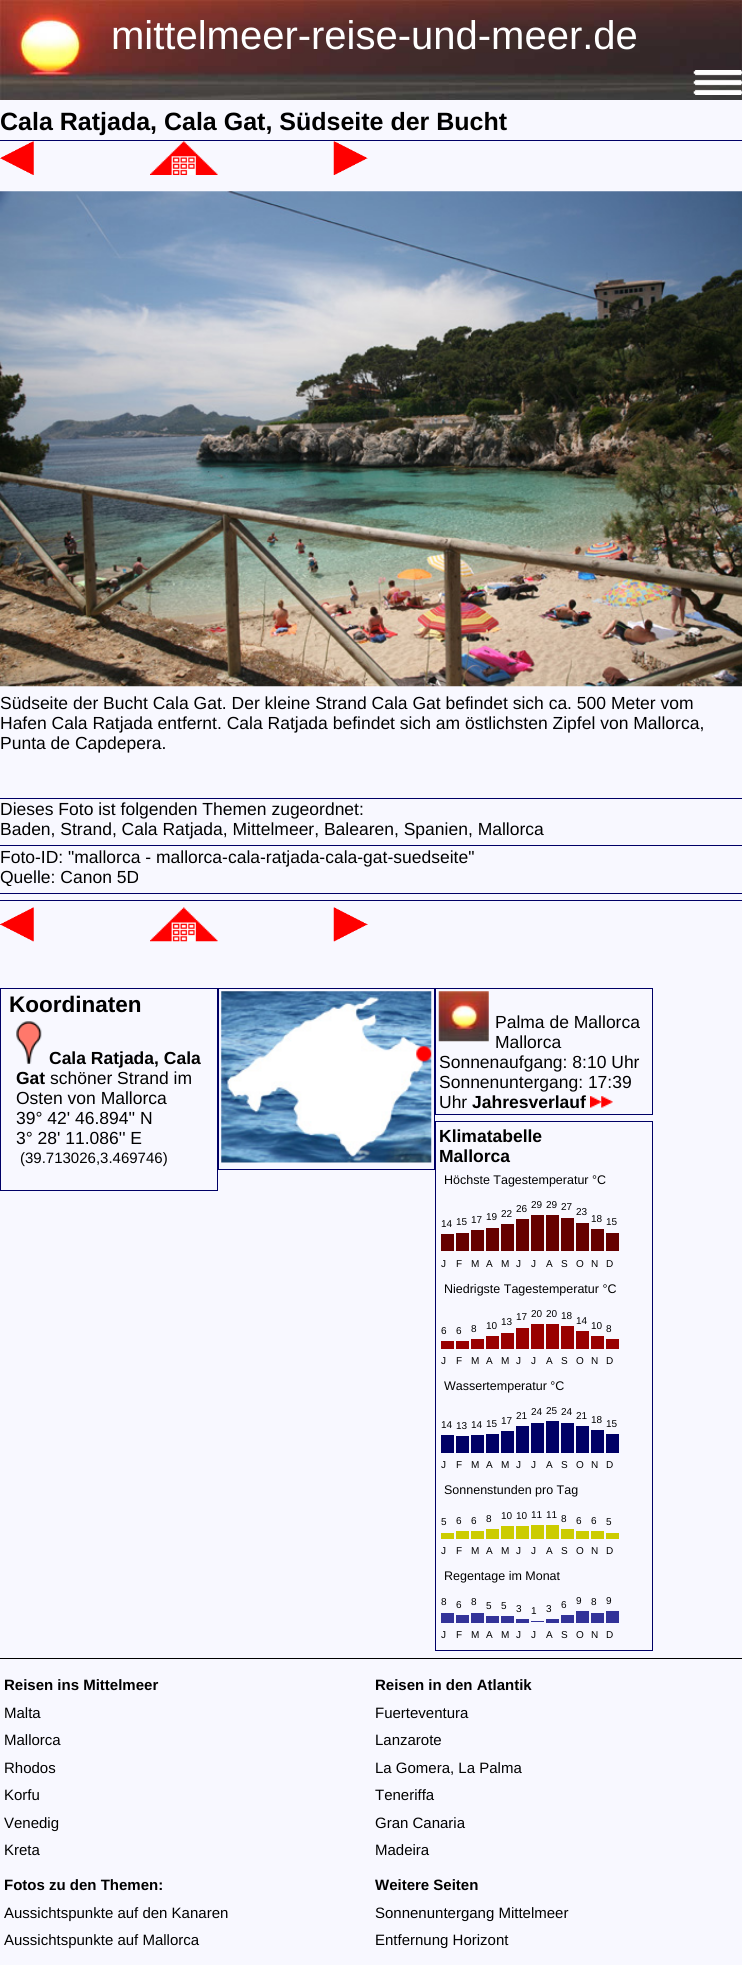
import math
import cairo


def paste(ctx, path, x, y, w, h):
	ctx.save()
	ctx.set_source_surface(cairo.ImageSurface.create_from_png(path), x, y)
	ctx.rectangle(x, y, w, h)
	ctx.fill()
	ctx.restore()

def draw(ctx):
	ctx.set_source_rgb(0.969, 0.969, 1)
	ctx.paint()
	paste(ctx, 'media/1.png', 0, 0, 742, 100)
	ctx.select_font_face('Liberation Sans')
	ctx.set_font_size(40)
	ctx.set_source_rgb(1, 1, 1)
	ctx.move_to(111, 49)
	ctx.show_text('mittelmeer-reise-und-meer.de')
	paste(ctx, 'media/2.png', 693, 70, 49, 25)
	ctx.select_font_face('Liberation Sans', cairo.FONT_SLANT_NORMAL, cairo.FONT_WEIGHT_BOLD)
	ctx.set_font_size(25)
	ctx.set_source_rgb(0, 0, 0)
	ctx.move_to(0, 130)
	ctx.show_text('Cala Ratjada, Cala Gat, Südseite der Bucht')
	ctx.set_source_rgb(0, 0, 0.4)
	ctx.rectangle(0, 140, 742, 1)
	ctx.fill()
	paste(ctx, 'media/3.png', 0, 141, 34, 34)
	paste(ctx, 'media/4.png', 150, 141, 68, 34)
	paste(ctx, 'media/5.png', 333, 141, 35, 34)
	paste(ctx, 'media/6.png', 0, 191, 742, 496)
	ctx.select_font_face('Liberation Sans')
	ctx.set_font_size(17.5)
	ctx.set_source_rgb(0, 0, 0)
	for x, y, s in [
		(0, 709, 'Südseite der Bucht Cala Gat. Der kleine Strand Cala Gat befindet sich ca. 500 Meter vom'),
		(0, 729, 'Hafen Cala Ratjada entfernt. Cala Ratjada befindet sich am östlichsten Zipfel von Mallorca,'),
		(0, 749, 'Punta de Capdepera.'),
	]:
		ctx.move_to(x, y)
		ctx.show_text(s)
	ctx.set_source_rgb(0, 0, 0.4)
	ctx.rectangle(0, 798, 742, 1)
	ctx.fill()
	ctx.set_source_rgb(0, 0, 0)
	ctx.move_to(0, 815)
	ctx.show_text('Dieses Foto ist folgenden Themen zugeordnet:')
	ctx.move_to(0, 835)
	ctx.show_text('Baden, Strand, Cala Ratjada, Mittelmeer, Balearen, Spanien, Mallorca')
	ctx.set_source_rgb(0, 0, 0.4)
	ctx.rectangle(0, 845, 742, 1)
	ctx.fill()
	ctx.set_source_rgb(0, 0, 0)
	ctx.move_to(0, 863)
	ctx.show_text('Foto-ID: "mallorca - mallorca-cala-ratjada-cala-gat-suedseite"')
	ctx.save()
	ctx.rectangle(0, 846, 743, 40)
	ctx.clip()
	ctx.move_to(0, 883)
	ctx.show_text('Quelle: Canon 5D')
	ctx.restore()
	ctx.set_source_rgb(0, 0, 0.4)
	ctx.rectangle(0, 893, 742, 1)
	ctx.fill()
	ctx.rectangle(0, 900, 742, 1)
	ctx.fill()
	paste(ctx, 'media/7.png', 0, 907, 34, 35)
	paste(ctx, 'media/8.png', 150, 907, 68, 35)
	paste(ctx, 'media/9.png', 333, 907, 35, 35)
	ctx.rectangle(0.5, 988.5, 217, 202)
	ctx.set_line_width(1)
	ctx.stroke()
	ctx.select_font_face('Liberation Sans', cairo.FONT_SLANT_NORMAL, cairo.FONT_WEIGHT_BOLD)
	ctx.set_font_size(22.5)
	ctx.set_source_rgb(0, 0, 0)
	ctx.move_to(9, 1012)
	ctx.show_text('Koordinaten')
	paste(ctx, 'media/10.png', 16, 1021, 26, 43)
	ctx.set_font_size(17.5)
	ctx.move_to(49, 1064)
	ctx.show_text('Cala Ratjada, Cala')
	ctx.move_to(16, 1084)
	ctx.show_text('Gat')
	ctx.select_font_face('Liberation Sans')
	for x, y, s in [
		(50, 1084, 'schöner Strand im'),
		(16, 1104, 'Osten von Mallorca'),
		(16, 1124, '39° 42\' 46.894\'\' N'),
		(16, 1144, '3° 28\' 11.086\'\' E'),
	]:
		ctx.move_to(x, y)
		ctx.show_text(s)
	ctx.set_font_size(15)
	ctx.move_to(20, 1163)
	ctx.show_text('(39.713026,3.469746)')
	ctx.rectangle(218.5, 988.5, 216, 181)
	ctx.set_source_rgb(0, 0, 0.4)
	ctx.stroke()
	paste(ctx, 'media/11.png', 221, 991, 211, 172)
	ctx.rectangle(435.5, 988.5, 217, 126)
	ctx.stroke()
	paste(ctx, 'media/12.png', 438, 991, 51, 51)
	ctx.set_font_size(17.5)
	ctx.set_source_rgb(0, 0, 0)
	for x, y, s in [
		(495, 1028, 'Palma de Mallorca'),
		(495, 1048, 'Mallorca'),
		(439, 1068, 'Sonnenaufgang: 8:10 Uhr'),
		(439, 1088, 'Sonnenuntergang: 17:39'),
		(439, 1108, 'Uhr'),
	]:
		ctx.move_to(x, y)
		ctx.show_text(s)
	ctx.select_font_face('Liberation Sans', cairo.FONT_SLANT_NORMAL, cairo.FONT_WEIGHT_BOLD)
	ctx.move_to(472, 1108)
	ctx.show_text('Jahresverlauf')
	paste(ctx, 'media/13.png', 590, 1096, 12, 12)
	paste(ctx, 'media/14.png', 601, 1096, 12, 12)
	ctx.rectangle(435.5, 1121.5, 217, 529)
	ctx.set_source_rgb(0, 0, 0.4)
	ctx.stroke()
	ctx.set_source_rgb(0, 0, 0)
	ctx.move_to(439, 1142)
	ctx.show_text('Klimatabelle')
	ctx.move_to(439, 1162)
	ctx.show_text('Mallorca')
	ctx.select_font_face('Liberation Sans')
	ctx.set_font_size(12.5)
	ctx.move_to(444, 1184)
	ctx.show_text('Höchste Tagestemperatur °C')
	ctx.set_font_size(10)
	ctx.move_to(441, 1227)
	ctx.show_text('14')
	ctx.set_source_rgb(0.4, 0, 0)
	ctx.rectangle(441, 1234, 13, 17)
	ctx.fill()
	ctx.set_source_rgb(0, 0, 0)
	ctx.move_to(456, 1225)
	ctx.show_text('15')
	ctx.set_source_rgb(0.4, 0, 0)
	ctx.rectangle(456, 1233, 13, 18)
	ctx.fill()
	ctx.set_source_rgb(0, 0, 0)
	ctx.move_to(471, 1223)
	ctx.show_text('17')
	ctx.set_source_rgb(0.4, 0, 0)
	ctx.rectangle(471, 1230, 13, 21)
	ctx.fill()
	ctx.set_source_rgb(0, 0, 0)
	ctx.move_to(486, 1220)
	ctx.show_text('19')
	ctx.set_source_rgb(0.4, 0, 0)
	ctx.rectangle(486, 1228, 13, 23)
	ctx.fill()
	ctx.set_source_rgb(0, 0, 0)
	ctx.move_to(501, 1217)
	ctx.show_text('22')
	ctx.set_source_rgb(0.4, 0, 0)
	ctx.rectangle(501, 1224, 13, 27)
	ctx.fill()
	ctx.set_source_rgb(0, 0, 0)
	ctx.move_to(516, 1212)
	ctx.show_text('26')
	ctx.set_source_rgb(0.4, 0, 0)
	ctx.rectangle(516, 1219, 13, 32)
	ctx.fill()
	ctx.set_source_rgb(0, 0, 0)
	ctx.move_to(531, 1208)
	ctx.show_text('29')
	ctx.set_source_rgb(0.4, 0, 0)
	ctx.rectangle(531, 1215, 13, 36)
	ctx.fill()
	ctx.set_source_rgb(0, 0, 0)
	ctx.move_to(546, 1208)
	ctx.show_text('29')
	ctx.set_source_rgb(0.4, 0, 0)
	ctx.rectangle(546, 1215, 13, 36)
	ctx.fill()
	ctx.set_source_rgb(0, 0, 0)
	ctx.move_to(561, 1210)
	ctx.show_text('27')
	ctx.set_source_rgb(0.4, 0, 0)
	ctx.rectangle(561, 1218, 13, 33)
	ctx.fill()
	ctx.set_source_rgb(0, 0, 0)
	ctx.move_to(576, 1215)
	ctx.show_text('23')
	ctx.set_source_rgb(0.4, 0, 0)
	ctx.rectangle(576, 1223, 13, 28)
	ctx.fill()
	ctx.set_source_rgb(0, 0, 0)
	ctx.move_to(591, 1222)
	ctx.show_text('18')
	ctx.set_source_rgb(0.4, 0, 0)
	ctx.rectangle(591, 1229, 13, 22)
	ctx.fill()
	ctx.set_source_rgb(0, 0, 0)
	ctx.move_to(606, 1225)
	ctx.show_text('15')
	ctx.set_source_rgb(0.4, 0, 0)
	ctx.rectangle(606, 1233, 13, 18)
	ctx.fill()
	ctx.set_source_rgb(0, 0, 0)
	for x, y, s in [
		(441, 1267, 'J'),
		(456, 1267, 'F'),
		(471, 1267, 'M'),
		(486, 1267, 'A'),
		(501, 1267, 'M'),
		(516, 1267, 'J'),
		(531, 1267, 'J'),
		(546, 1267, 'A'),
		(561, 1267, 'S'),
		(576, 1267, 'O'),
		(591, 1267, 'N'),
		(606, 1267, 'D'),
	]:
		ctx.move_to(x, y)
		ctx.show_text(s)
	ctx.set_font_size(12.5)
	ctx.move_to(444, 1293)
	ctx.show_text('Niedrigste Tagestemperatur °C')
	ctx.set_font_size(10)
	ctx.move_to(441, 1334)
	ctx.show_text('6')
	ctx.set_source_rgb(0.6, 0, 0)
	ctx.rectangle(441, 1341, 13, 8)
	ctx.fill()
	ctx.set_source_rgb(0, 0, 0)
	ctx.move_to(456, 1334)
	ctx.show_text('6')
	ctx.set_source_rgb(0.6, 0, 0)
	ctx.rectangle(456, 1341, 13, 8)
	ctx.fill()
	ctx.set_source_rgb(0, 0, 0)
	ctx.move_to(471, 1332)
	ctx.show_text('8')
	ctx.set_source_rgb(0.6, 0, 0)
	ctx.rectangle(471, 1339, 13, 10)
	ctx.fill()
	ctx.set_source_rgb(0, 0, 0)
	ctx.move_to(486, 1329)
	ctx.show_text('10')
	ctx.set_source_rgb(0.6, 0, 0)
	ctx.rectangle(486, 1336, 13, 13)
	ctx.fill()
	ctx.set_source_rgb(0, 0, 0)
	ctx.move_to(501, 1325)
	ctx.show_text('13')
	ctx.set_source_rgb(0.6, 0, 0)
	ctx.rectangle(501, 1333, 13, 16)
	ctx.fill()
	ctx.set_source_rgb(0, 0, 0)
	ctx.move_to(516, 1320)
	ctx.show_text('17')
	ctx.set_source_rgb(0.6, 0, 0)
	ctx.rectangle(516, 1328, 13, 21)
	ctx.fill()
	ctx.set_source_rgb(0, 0, 0)
	ctx.move_to(531, 1317)
	ctx.show_text('20')
	ctx.set_source_rgb(0.6, 0, 0)
	ctx.rectangle(531, 1324, 13, 25)
	ctx.fill()
	ctx.set_source_rgb(0, 0, 0)
	ctx.move_to(546, 1317)
	ctx.show_text('20')
	ctx.set_source_rgb(0.6, 0, 0)
	ctx.rectangle(546, 1324, 13, 25)
	ctx.fill()
	ctx.set_source_rgb(0, 0, 0)
	ctx.move_to(561, 1319)
	ctx.show_text('18')
	ctx.set_source_rgb(0.6, 0, 0)
	ctx.rectangle(561, 1326, 13, 23)
	ctx.fill()
	ctx.set_source_rgb(0, 0, 0)
	ctx.move_to(576, 1324)
	ctx.show_text('14')
	ctx.set_source_rgb(0.6, 0, 0)
	ctx.rectangle(576, 1331, 13, 18)
	ctx.fill()
	ctx.set_source_rgb(0, 0, 0)
	ctx.move_to(591, 1329)
	ctx.show_text('10')
	ctx.set_source_rgb(0.6, 0, 0)
	ctx.rectangle(591, 1336, 13, 13)
	ctx.fill()
	ctx.set_source_rgb(0, 0, 0)
	ctx.move_to(606, 1332)
	ctx.show_text('8')
	ctx.set_source_rgb(0.6, 0, 0)
	ctx.rectangle(606, 1339, 13, 10)
	ctx.fill()
	ctx.set_source_rgb(0, 0, 0)
	for x, y, s in [
		(441, 1364, 'J'),
		(456, 1364, 'F'),
		(471, 1364, 'M'),
		(486, 1364, 'A'),
		(501, 1364, 'M'),
		(516, 1364, 'J'),
		(531, 1364, 'J'),
		(546, 1364, 'A'),
		(561, 1364, 'S'),
		(576, 1364, 'O'),
		(591, 1364, 'N'),
		(606, 1364, 'D'),
	]:
		ctx.move_to(x, y)
		ctx.show_text(s)
	ctx.set_font_size(12.5)
	ctx.move_to(444, 1390)
	ctx.show_text('Wassertemperatur °C')
	ctx.set_font_size(10)
	ctx.move_to(441, 1428)
	ctx.show_text('14')
	ctx.set_source_rgb(0, 0, 0.4)
	ctx.rectangle(441, 1435, 13, 18)
	ctx.fill()
	ctx.set_source_rgb(0, 0, 0)
	ctx.move_to(456, 1429)
	ctx.show_text('13')
	ctx.set_source_rgb(0, 0, 0.4)
	ctx.rectangle(456, 1436, 13, 17)
	ctx.fill()
	ctx.set_source_rgb(0, 0, 0)
	ctx.move_to(471, 1428)
	ctx.show_text('14')
	ctx.set_source_rgb(0, 0, 0.4)
	ctx.rectangle(471, 1435, 13, 18)
	ctx.fill()
	ctx.set_source_rgb(0, 0, 0)
	ctx.move_to(486, 1427)
	ctx.show_text('15')
	ctx.set_source_rgb(0, 0, 0.4)
	ctx.rectangle(486, 1434, 13, 19)
	ctx.fill()
	ctx.set_source_rgb(0, 0, 0)
	ctx.move_to(501, 1424)
	ctx.show_text('17')
	ctx.set_source_rgb(0, 0, 0.4)
	ctx.rectangle(501, 1431, 13, 22)
	ctx.fill()
	ctx.set_source_rgb(0, 0, 0)
	ctx.move_to(516, 1419)
	ctx.show_text('21')
	ctx.set_source_rgb(0, 0, 0.4)
	ctx.rectangle(516, 1426, 13, 27)
	ctx.fill()
	ctx.set_source_rgb(0, 0, 0)
	ctx.move_to(531, 1415)
	ctx.show_text('24')
	ctx.set_source_rgb(0, 0, 0.4)
	ctx.rectangle(531, 1423, 13, 30)
	ctx.fill()
	ctx.set_source_rgb(0, 0, 0)
	ctx.move_to(546, 1414)
	ctx.show_text('25')
	ctx.set_source_rgb(0, 0, 0.4)
	ctx.rectangle(546, 1421, 13, 32)
	ctx.fill()
	ctx.set_source_rgb(0, 0, 0)
	ctx.move_to(561, 1415)
	ctx.show_text('24')
	ctx.set_source_rgb(0, 0, 0.4)
	ctx.rectangle(561, 1423, 13, 30)
	ctx.fill()
	ctx.set_source_rgb(0, 0, 0)
	ctx.move_to(576, 1419)
	ctx.show_text('21')
	ctx.set_source_rgb(0, 0, 0.4)
	ctx.rectangle(576, 1426, 13, 27)
	ctx.fill()
	ctx.set_source_rgb(0, 0, 0)
	ctx.move_to(591, 1423)
	ctx.show_text('18')
	ctx.set_source_rgb(0, 0, 0.4)
	ctx.rectangle(591, 1430, 13, 23)
	ctx.fill()
	ctx.set_source_rgb(0, 0, 0)
	ctx.move_to(606, 1427)
	ctx.show_text('15')
	ctx.set_source_rgb(0, 0, 0.4)
	ctx.rectangle(606, 1434, 13, 19)
	ctx.fill()
	ctx.set_source_rgb(0, 0, 0)
	for x, y, s in [
		(441, 1468, 'J'),
		(456, 1468, 'F'),
		(471, 1468, 'M'),
		(486, 1468, 'A'),
		(501, 1468, 'M'),
		(516, 1468, 'J'),
		(531, 1468, 'J'),
		(546, 1468, 'A'),
		(561, 1468, 'S'),
		(576, 1468, 'O'),
		(591, 1468, 'N'),
		(606, 1468, 'D'),
	]:
		ctx.move_to(x, y)
		ctx.show_text(s)
	ctx.set_font_size(12.5)
	ctx.move_to(444, 1494)
	ctx.show_text('Sonnenstunden pro Tag')
	ctx.set_font_size(10)
	ctx.move_to(441, 1525)
	ctx.show_text('5')
	ctx.set_source_rgb(0.8, 0.8, 0)
	ctx.rectangle(441, 1533, 13, 6)
	ctx.fill()
	ctx.set_source_rgb(0, 0, 0)
	ctx.move_to(456, 1524)
	ctx.show_text('6')
	ctx.set_source_rgb(0.8, 0.8, 0)
	ctx.rectangle(456, 1531, 13, 8)
	ctx.fill()
	ctx.set_source_rgb(0, 0, 0)
	ctx.move_to(471, 1524)
	ctx.show_text('6')
	ctx.set_source_rgb(0.8, 0.8, 0)
	ctx.rectangle(471, 1531, 13, 8)
	ctx.fill()
	ctx.set_source_rgb(0, 0, 0)
	ctx.move_to(486, 1522)
	ctx.show_text('8')
	ctx.set_source_rgb(0.8, 0.8, 0)
	ctx.rectangle(486, 1529, 13, 10)
	ctx.fill()
	ctx.set_source_rgb(0, 0, 0)
	ctx.move_to(501, 1519)
	ctx.show_text('10')
	ctx.set_source_rgb(0.8, 0.8, 0)
	ctx.rectangle(501, 1526, 13, 13)
	ctx.fill()
	ctx.set_source_rgb(0, 0, 0)
	ctx.move_to(516, 1519)
	ctx.show_text('10')
	ctx.set_source_rgb(0.8, 0.8, 0)
	ctx.rectangle(516, 1526, 13, 13)
	ctx.fill()
	ctx.set_source_rgb(0, 0, 0)
	ctx.move_to(531, 1518)
	ctx.show_text('11')
	ctx.set_source_rgb(0.8, 0.8, 0)
	ctx.rectangle(531, 1525, 13, 14)
	ctx.fill()
	ctx.set_source_rgb(0, 0, 0)
	ctx.move_to(546, 1518)
	ctx.show_text('11')
	ctx.set_source_rgb(0.8, 0.8, 0)
	ctx.rectangle(546, 1525, 13, 14)
	ctx.fill()
	ctx.set_source_rgb(0, 0, 0)
	ctx.move_to(561, 1522)
	ctx.show_text('8')
	ctx.set_source_rgb(0.8, 0.8, 0)
	ctx.rectangle(561, 1529, 13, 10)
	ctx.fill()
	ctx.set_source_rgb(0, 0, 0)
	ctx.move_to(576, 1524)
	ctx.show_text('6')
	ctx.set_source_rgb(0.8, 0.8, 0)
	ctx.rectangle(576, 1531, 13, 8)
	ctx.fill()
	ctx.set_source_rgb(0, 0, 0)
	ctx.move_to(591, 1524)
	ctx.show_text('6')
	ctx.set_source_rgb(0.8, 0.8, 0)
	ctx.rectangle(591, 1531, 13, 8)
	ctx.fill()
	ctx.set_source_rgb(0, 0, 0)
	ctx.move_to(606, 1525)
	ctx.show_text('5')
	ctx.set_source_rgb(0.8, 0.8, 0)
	ctx.rectangle(606, 1533, 13, 6)
	ctx.fill()
	ctx.set_source_rgb(0, 0, 0)
	for x, y, s in [
		(441, 1554, 'J'),
		(456, 1554, 'F'),
		(471, 1554, 'M'),
		(486, 1554, 'A'),
		(501, 1554, 'M'),
		(516, 1554, 'J'),
		(531, 1554, 'J'),
		(546, 1554, 'A'),
		(561, 1554, 'S'),
		(576, 1554, 'O'),
		(591, 1554, 'N'),
		(606, 1554, 'D'),
	]:
		ctx.move_to(x, y)
		ctx.show_text(s)
	ctx.set_font_size(12.5)
	ctx.move_to(444, 1580)
	ctx.show_text('Regentage im Monat')
	ctx.set_font_size(10)
	ctx.move_to(441, 1605)
	ctx.show_text('8')
	ctx.set_source_rgb(0.2, 0.2, 0.6)
	ctx.rectangle(441, 1613, 13, 10)
	ctx.fill()
	ctx.set_source_rgb(0, 0, 0)
	ctx.move_to(456, 1608)
	ctx.show_text('6')
	ctx.set_source_rgb(0.2, 0.2, 0.6)
	ctx.rectangle(456, 1615, 13, 8)
	ctx.fill()
	ctx.set_source_rgb(0, 0, 0)
	ctx.move_to(471, 1605)
	ctx.show_text('8')
	ctx.set_source_rgb(0.2, 0.2, 0.6)
	ctx.rectangle(471, 1613, 13, 10)
	ctx.fill()
	ctx.set_source_rgb(0, 0, 0)
	ctx.move_to(486, 1609)
	ctx.show_text('5')
	ctx.set_source_rgb(0.2, 0.2, 0.6)
	ctx.rectangle(486, 1616, 13, 7)
	ctx.fill()
	ctx.set_source_rgb(0, 0, 0)
	ctx.move_to(501, 1609)
	ctx.show_text('5')
	ctx.set_source_rgb(0.2, 0.2, 0.6)
	ctx.rectangle(501, 1616, 13, 7)
	ctx.fill()
	ctx.set_source_rgb(0, 0, 0)
	ctx.move_to(516, 1612)
	ctx.show_text('3')
	ctx.set_source_rgb(0.2, 0.2, 0.6)
	ctx.rectangle(516, 1619, 13, 4)
	ctx.fill()
	ctx.set_source_rgb(0, 0, 0)
	ctx.move_to(531, 1614)
	ctx.show_text('1')
	ctx.set_source_rgb(0.2, 0.2, 0.6)
	ctx.rectangle(531, 1621, 13, 1)
	ctx.fill()
	ctx.set_source_rgb(0, 0, 0)
	ctx.move_to(546, 1612)
	ctx.show_text('3')
	ctx.set_source_rgb(0.2, 0.2, 0.6)
	ctx.rectangle(546, 1619, 13, 4)
	ctx.fill()
	ctx.set_source_rgb(0, 0, 0)
	ctx.move_to(561, 1608)
	ctx.show_text('6')
	ctx.set_source_rgb(0.2, 0.2, 0.6)
	ctx.rectangle(561, 1615, 13, 8)
	ctx.fill()
	ctx.set_source_rgb(0, 0, 0)
	ctx.move_to(576, 1604)
	ctx.show_text('9')
	ctx.set_source_rgb(0.2, 0.2, 0.6)
	ctx.rectangle(576, 1611, 13, 12)
	ctx.fill()
	ctx.set_source_rgb(0, 0, 0)
	ctx.move_to(591, 1605)
	ctx.show_text('8')
	ctx.set_source_rgb(0.2, 0.2, 0.6)
	ctx.rectangle(591, 1613, 13, 10)
	ctx.fill()
	ctx.set_source_rgb(0, 0, 0)
	ctx.move_to(606, 1604)
	ctx.show_text('9')
	ctx.set_source_rgb(0.2, 0.2, 0.6)
	ctx.rectangle(606, 1611, 13, 12)
	ctx.fill()
	ctx.set_source_rgb(0, 0, 0)
	for x, y, s in [
		(441, 1638, 'J'),
		(456, 1638, 'F'),
		(471, 1638, 'M'),
		(486, 1638, 'A'),
		(501, 1638, 'M'),
		(516, 1638, 'J'),
		(531, 1638, 'J'),
		(546, 1638, 'A'),
		(561, 1638, 'S'),
		(576, 1638, 'O'),
		(591, 1638, 'N'),
		(606, 1638, 'D'),
	]:
		ctx.move_to(x, y)
		ctx.show_text(s)
	ctx.rectangle(0, 1658, 742, 1)
	ctx.fill()
	ctx.select_font_face('Liberation Sans', cairo.FONT_SLANT_NORMAL, cairo.FONT_WEIGHT_BOLD)
	ctx.set_font_size(15)
	ctx.move_to(4, 1690)
	ctx.show_text('Reisen ins Mittelmeer')
	ctx.select_font_face('Liberation Sans')
	for x, y, s in [
		(4, 1718, 'Malta'),
		(4, 1745, 'Mallorca'),
		(4, 1773, 'Rhodos'),
		(4, 1800, 'Korfu'),
		(4, 1828, 'Venedig'),
		(4, 1855, 'Kreta'),
	]:
		ctx.move_to(x, y)
		ctx.show_text(s)
	ctx.select_font_face('Liberation Sans', cairo.FONT_SLANT_NORMAL, cairo.FONT_WEIGHT_BOLD)
	ctx.move_to(375, 1690)
	ctx.show_text('Reisen in den Atlantik')
	ctx.select_font_face('Liberation Sans')
	for x, y, s in [
		(375, 1718, 'Fuerteventura'),
		(375, 1745, 'Lanzarote'),
		(375, 1773, 'La Gomera, La Palma'),
		(375, 1800, 'Teneriffa'),
		(375, 1828, 'Gran Canaria'),
		(375, 1855, 'Madeira'),
	]:
		ctx.move_to(x, y)
		ctx.show_text(s)
	ctx.select_font_face('Liberation Sans', cairo.FONT_SLANT_NORMAL, cairo.FONT_WEIGHT_BOLD)
	ctx.move_to(4, 1890)
	ctx.show_text('Fotos zu den Themen:')
	ctx.select_font_face('Liberation Sans')
	ctx.move_to(4, 1918)
	ctx.show_text('Aussichtspunkte auf den Kanaren')
	ctx.move_to(4, 1945)
	ctx.show_text('Aussichtspunkte auf Mallorca')
	ctx.select_font_face('Liberation Sans', cairo.FONT_SLANT_NORMAL, cairo.FONT_WEIGHT_BOLD)
	ctx.move_to(375, 1890)
	ctx.show_text('Weitere Seiten')
	ctx.select_font_face('Liberation Sans')
	ctx.move_to(375, 1918)
	ctx.show_text('Sonnenuntergang Mittelmeer')
	ctx.move_to(375, 1945)
	ctx.show_text('Entfernung Horizont')


surface = cairo.ImageSurface(cairo.FORMAT_RGB24, 742, 1965)
ctx = cairo.Context(surface)
options = cairo.FontOptions()
options.set_hint_metrics(cairo.HINT_METRICS_OFF)
options.set_hint_style(cairo.HINT_STYLE_NONE)
ctx.set_font_options(options)
ctx.set_miter_limit(4)
draw(ctx)
surface.write_to_png('image.png')
